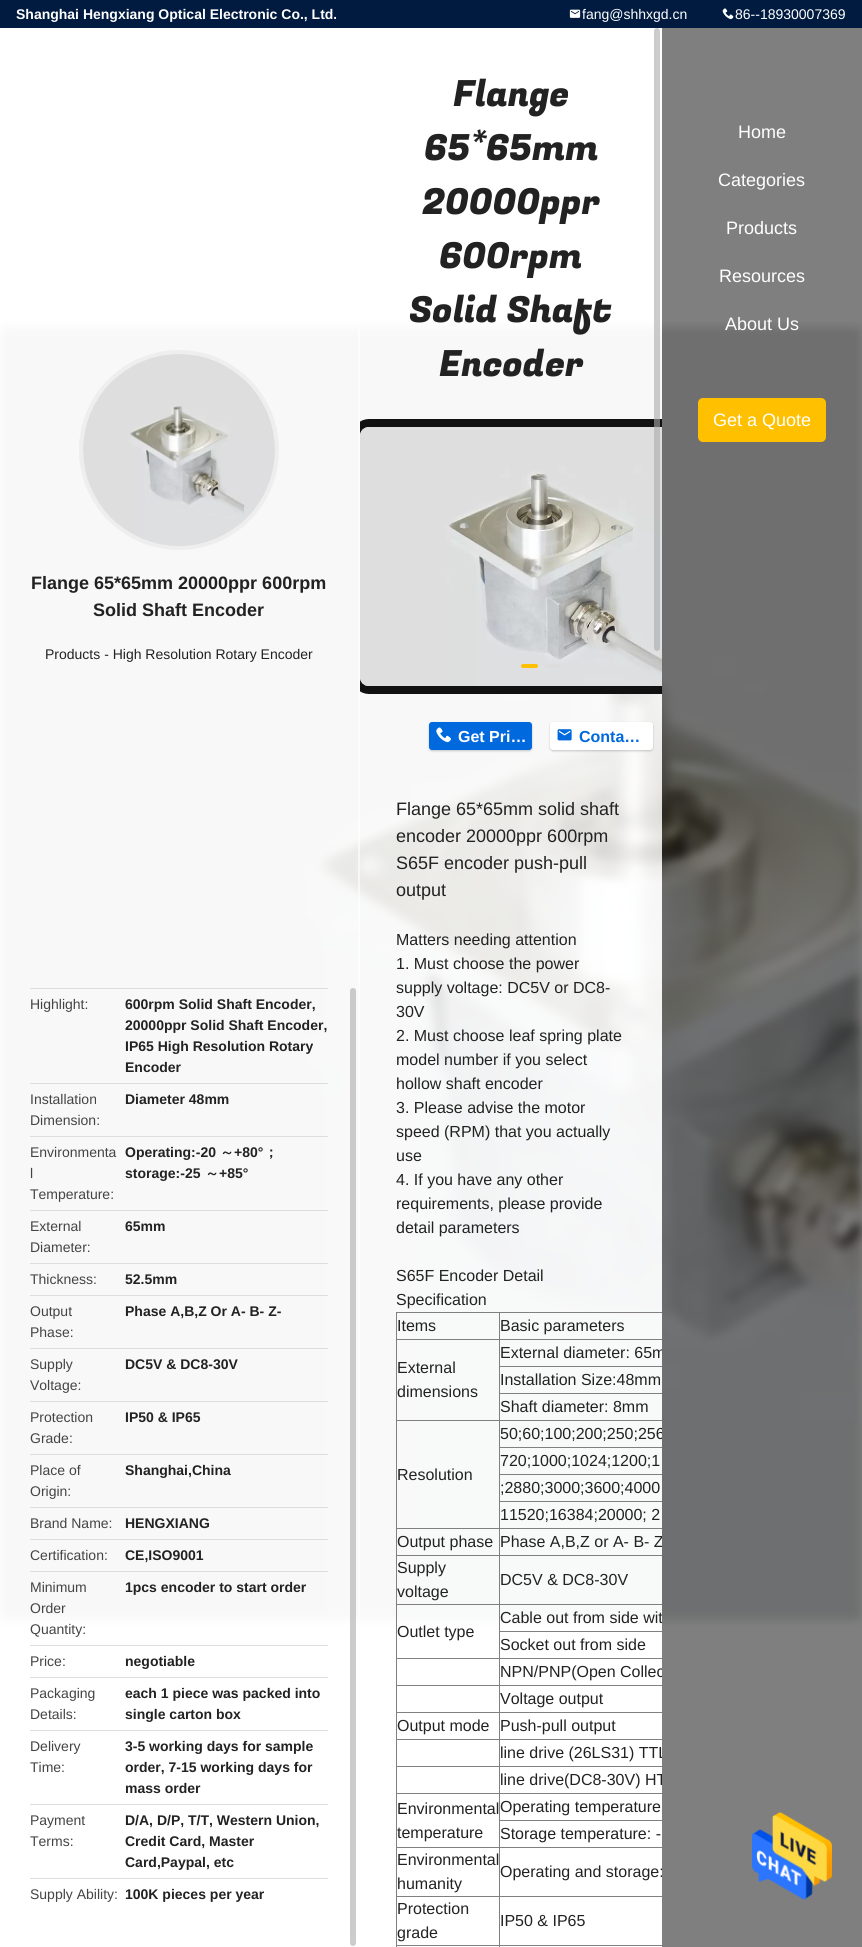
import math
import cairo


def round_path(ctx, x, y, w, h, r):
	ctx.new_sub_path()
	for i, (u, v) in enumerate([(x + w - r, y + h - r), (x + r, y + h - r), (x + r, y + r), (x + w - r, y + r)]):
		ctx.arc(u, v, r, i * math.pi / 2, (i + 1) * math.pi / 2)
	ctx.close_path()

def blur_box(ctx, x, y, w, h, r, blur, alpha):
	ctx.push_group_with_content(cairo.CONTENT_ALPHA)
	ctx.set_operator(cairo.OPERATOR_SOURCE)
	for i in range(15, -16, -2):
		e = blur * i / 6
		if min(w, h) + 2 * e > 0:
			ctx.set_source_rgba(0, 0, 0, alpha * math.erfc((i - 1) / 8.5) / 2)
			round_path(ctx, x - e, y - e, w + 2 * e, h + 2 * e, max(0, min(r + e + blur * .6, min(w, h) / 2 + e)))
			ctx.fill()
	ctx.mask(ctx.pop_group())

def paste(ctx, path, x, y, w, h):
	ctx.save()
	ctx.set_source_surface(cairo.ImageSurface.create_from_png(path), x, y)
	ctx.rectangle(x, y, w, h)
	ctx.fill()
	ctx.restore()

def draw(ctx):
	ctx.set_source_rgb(1, 1, 1)
	ctx.paint()
	ctx.set_source_rgb(0, 0.106, 0.247)
	ctx.rectangle(0, 0, 862, 28)
	ctx.fill()
	ctx.select_font_face('Liberation Sans', cairo.FONT_SLANT_NORMAL, cairo.FONT_WEIGHT_BOLD)
	ctx.set_font_size(14)
	ctx.set_source_rgb(1, 1, 1)
	ctx.move_to(16, 19)
	ctx.show_text('Shanghai Hengxiang Optical Electronic Co., Ltd.')
	paste(ctx, 'media/1.png', 569, 9, 12, 9)
	ctx.select_font_face('Liberation Sans')
	ctx.move_to(582, 19)
	ctx.show_text('fang@shhxgd.cn')
	paste(ctx, 'media/2.png', 722, 8, 12, 12)
	ctx.move_to(735, 19)
	ctx.show_text('86--18930007369')
	paste(ctx, 'media/6.png', 0, 321, 862, 1305)
	ctx.set_source_rgba(1, 1, 1, 0.8)
	ctx.rectangle(360, 322, 302, 1304)
	ctx.fill()
	ctx.select_font_face('Fugaz One')
	ctx.set_font_size(36)
	ctx.set_source_rgb(0.133, 0.133, 0.133)
	for x, y, s in [
		(453, 106, 'Flange'),
		(424, 160, '65*65mm'),
		(422, 214, '20000ppr'),
		(439, 268, '600rpm'),
		(409, 322, 'Solid Shaft'),
		(439, 376, 'Encoder'),
	]:
		ctx.move_to(x, y)
		ctx.show_text(s)
	ctx.set_source_rgba(0, 0, 0, 0.5)
	ctx.rectangle(662, 28, 200, 1919)
	ctx.fill()
	ctx.set_source_rgb(1, 0.753, 0)
	round_path(ctx, 698, 398, 128, 44, 5)
	ctx.fill()
	ctx.select_font_face('Liberation Sans')
	ctx.set_font_size(18)
	ctx.set_source_rgb(1, 1, 1)
	ctx.move_to(713, 426)
	ctx.show_text('Get a Quote')
	ctx.set_source_rgba(1, 1, 1, 0.8)
	ctx.rectangle(0, 321, 360, 1305)
	ctx.fill()
	ctx.set_source_rgba(1, 1, 1, 0.6)
	ctx.rectangle(358, 329, 2, 1289)
	ctx.fill()
	ctx.save()
	ctx.rectangle(360, 28, 302, 1919)
	ctx.clip()
	round_path(ctx, 356, 423, 370, 267, 13)
	ctx.set_source_rgb(0.067, 0.067, 0.067)
	ctx.set_line_width(8)
	ctx.stroke()
	ctx.restore()
	paste(ctx, 'media/3.png', 360, 427, 302, 259)
	ctx.set_source_rgba(0.667, 0.667, 0.667, 0.6)
	round_path(ctx, 654, 28, 6, 623, 3)
	ctx.fill()
	ctx.set_source_rgb(1, 0.753, 0)
	round_path(ctx, 521, 664, 17, 4, 2)
	ctx.fill()
	ctx.set_source_rgb(0.867, 0.867, 0.867)
	round_path(ctx, 544, 664, 17, 4, 2)
	ctx.fill()
	ctx.set_source_rgb(0, 0, 0)
	blur_box(ctx, 429, 723, 103, 28, 3, 1, 0.2)
	ctx.set_source_rgb(0, 0.412, 0.871)
	round_path(ctx, 429, 722, 103, 28, 3)
	ctx.fill()
	paste(ctx, 'media/4.png', 436, 727, 15, 16)
	ctx.select_font_face('Liberation Sans', cairo.FONT_SLANT_NORMAL, cairo.FONT_WEIGHT_BOLD)
	ctx.set_font_size(16)
	ctx.set_source_rgb(1, 1, 1)
	ctx.move_to(458, 742)
	ctx.show_text('Get Pri…')
	ctx.set_source_rgb(0, 0, 0)
	blur_box(ctx, 550, 723, 103, 28, 3, 1, 0.2)
	ctx.set_source_rgb(1, 1, 1)
	round_path(ctx, 550, 722, 103, 28, 3)
	ctx.fill()
	paste(ctx, 'media/5.png', 557, 729, 15, 12)
	ctx.set_source_rgb(0, 0.412, 0.871)
	ctx.move_to(579, 742)
	ctx.show_text('Conta…')
	ctx.select_font_face('Liberation Sans')
	ctx.set_font_size(18)
	ctx.set_source_rgb(0.133, 0.133, 0.133)
	for x, y, s in [
		(396, 815, 'Flange 65*65mm solid shaft'),
		(396, 842, 'encoder 20000ppr 600rpm'),
		(396, 869, 'S65F encoder push-pull'),
		(396, 896, 'output'),
	]:
		ctx.move_to(x, y)
		ctx.show_text(s)
	ctx.set_font_size(16)
	for x, y, s in [
		(396, 945, 'Matters needing attention'),
		(396, 969, '1. Must choose the power'),
		(396, 993, 'supply voltage: DC5V or DC8-'),
		(396, 1017, '30V'),
		(396, 1041, '2. Must choose leaf spring plate'),
		(396, 1065, 'model number if you select'),
		(396, 1089, 'hollow shaft encoder'),
		(396, 1113, '3. Please advise the motor'),
		(396, 1137, 'speed (RPM) that you actually'),
		(396, 1161, 'use'),
		(396, 1185, '4. If you have any other'),
		(396, 1209, 'requirements, please provide'),
		(396, 1233, 'detail parameters'),
		(396, 1281, 'S65F Encoder Detail'),
		(396, 1305, 'Specification'),
	]:
		ctx.move_to(x, y)
		ctx.show_text(s)
	ctx.set_source_rgb(0.502, 0.502, 0.502)
	ctx.rectangle(396, 1312, 266, 1)
	ctx.fill()
	ctx.rectangle(396, 1312, 1, 635)
	ctx.fill()
	ctx.set_source_rgb(0.133, 0.133, 0.133)
	ctx.move_to(397, 1331)
	ctx.show_text('Items')
	ctx.set_source_rgb(0.502, 0.502, 0.502)
	ctx.rectangle(499, 1339, 163, 1)
	ctx.rectangle(499, 1366, 163, 1)
	ctx.rectangle(499, 1393, 163, 1)
	ctx.rectangle(499, 1420, 163, 1)
	ctx.rectangle(499, 1447, 163, 1)
	ctx.rectangle(499, 1474, 163, 1)
	ctx.rectangle(499, 1501, 163, 1)
	ctx.rectangle(499, 1528, 163, 1)
	ctx.rectangle(499, 1555, 163, 1)
	ctx.rectangle(499, 1604, 163, 1)
	ctx.rectangle(499, 1631, 163, 1)
	ctx.rectangle(499, 1658, 163, 1)
	ctx.rectangle(499, 1685, 163, 1)
	ctx.rectangle(499, 1712, 163, 1)
	ctx.rectangle(499, 1739, 163, 1)
	ctx.rectangle(499, 1766, 163, 1)
	ctx.rectangle(499, 1793, 163, 1)
	ctx.rectangle(499, 1820, 163, 1)
	ctx.rectangle(499, 1847, 163, 1)
	ctx.rectangle(499, 1896, 163, 1)
	ctx.rectangle(499, 1945, 163, 1)
	ctx.rectangle(499, 1945, 1, 2)
	ctx.rectangle(396, 1945, 104, 1)
	ctx.rectangle(499, 1896, 1, 50)
	ctx.rectangle(396, 1896, 104, 1)
	ctx.rectangle(499, 1847, 1, 50)
	ctx.rectangle(396, 1847, 104, 1)
	ctx.rectangle(499, 1820, 1, 28)
	ctx.rectangle(499, 1793, 1, 28)
	ctx.rectangle(396, 1793, 104, 1)
	ctx.rectangle(499, 1766, 1, 28)
	ctx.rectangle(396, 1766, 104, 1)
	ctx.rectangle(499, 1739, 1, 28)
	ctx.rectangle(396, 1739, 104, 1)
	ctx.rectangle(499, 1712, 1, 28)
	ctx.rectangle(396, 1712, 104, 1)
	ctx.rectangle(499, 1685, 1, 28)
	ctx.rectangle(396, 1685, 104, 1)
	ctx.rectangle(499, 1658, 1, 28)
	ctx.rectangle(396, 1658, 104, 1)
	ctx.rectangle(499, 1631, 1, 28)
	ctx.rectangle(499, 1604, 1, 28)
	ctx.rectangle(396, 1604, 104, 1)
	ctx.rectangle(499, 1555, 1, 50)
	ctx.rectangle(396, 1555, 104, 1)
	ctx.rectangle(499, 1528, 1, 28)
	ctx.rectangle(396, 1528, 104, 1)
	ctx.rectangle(499, 1501, 1, 28)
	ctx.rectangle(499, 1474, 1, 28)
	ctx.rectangle(499, 1447, 1, 28)
	ctx.rectangle(499, 1420, 1, 28)
	ctx.rectangle(396, 1420, 104, 1)
	ctx.rectangle(499, 1393, 1, 28)
	ctx.rectangle(499, 1366, 1, 28)
	ctx.rectangle(499, 1339, 1, 28)
	ctx.rectangle(396, 1339, 104, 1)
	ctx.rectangle(499, 1312, 1, 28)
	ctx.fill()
	ctx.set_source_rgb(0.133, 0.133, 0.133)
	ctx.move_to(500, 1331)
	ctx.show_text('Basic parameters')
	ctx.save()
	ctx.rectangle(360, 786, 302, 1161)
	ctx.clip()
	ctx.move_to(500, 1358)
	ctx.show_text('External diameter: 65m')
	ctx.restore()
	for x, y, s in [
		(397, 1373, 'External'),
		(397, 1397, 'dimensions'),
		(500, 1385, 'Installation Size:48mm'),
		(500, 1412, 'Shaft diameter: 8mm'),
	]:
		ctx.move_to(x, y)
		ctx.show_text(s)
	ctx.save()
	ctx.rectangle(360, 786, 302, 1161)
	ctx.clip()
	ctx.move_to(500, 1439)
	ctx.show_text('50;60;100;200;250;256')
	ctx.restore()
	for x, y, s in [
		(397, 1480, 'Resolution'),
		(500, 1466, '720;1000;1024;1200;1'),
		(500, 1493, ';2880;3000;3600;4000'),
		(500, 1520, '11520;16384;20000; 2'),
		(397, 1547, 'Output phase'),
	]:
		ctx.move_to(x, y)
		ctx.show_text(s)
	ctx.save()
	ctx.rectangle(360, 786, 302, 1161)
	ctx.clip()
	ctx.move_to(500, 1547)
	ctx.show_text('Phase A,B,Z or A- B- Z')
	ctx.restore()
	for x, y, s in [
		(397, 1573, 'Supply'),
		(397, 1597, 'voltage'),
		(500, 1585, 'DC5V & DC8-30V'),
	]:
		ctx.move_to(x, y)
		ctx.show_text(s)
	ctx.save()
	ctx.rectangle(360, 786, 302, 1161)
	ctx.clip()
	ctx.move_to(500, 1623)
	ctx.show_text('Cable out from side wit')
	ctx.restore()
	ctx.move_to(397, 1637)
	ctx.show_text('Outlet type')
	ctx.move_to(500, 1650)
	ctx.show_text('Socket out from side')
	ctx.save()
	ctx.rectangle(360, 786, 302, 1161)
	ctx.clip()
	ctx.move_to(500, 1677)
	ctx.show_text('NPN/PNP(Open Collec')
	ctx.restore()
	for x, y, s in [
		(500, 1704, 'Voltage output'),
		(397, 1731, 'Output mode'),
		(500, 1731, 'Push-pull output'),
	]:
		ctx.move_to(x, y)
		ctx.show_text(s)
	ctx.save()
	ctx.rectangle(360, 786, 302, 1161)
	ctx.clip()
	ctx.move_to(500, 1758)
	ctx.show_text('line drive (26LS31) TTL')
	ctx.move_to(500, 1785)
	ctx.show_text('line drive(DC8-30V) HT')
	ctx.restore()
	for x, y, s in [
		(397, 1814, 'Environmental'),
		(397, 1838, 'temperature'),
		(500, 1812, 'Operating temperature'),
		(500, 1839, 'Storage temperature: -'),
		(397, 1865, 'Environmental'),
		(397, 1889, 'humanity'),
	]:
		ctx.move_to(x, y)
		ctx.show_text(s)
	ctx.save()
	ctx.rectangle(360, 786, 302, 1161)
	ctx.clip()
	ctx.move_to(500, 1877)
	ctx.show_text('Operating and storage:')
	ctx.restore()
	for x, y, s in [
		(397, 1914, 'Protection'),
		(397, 1938, 'grade'),
		(500, 1926, 'IP50 & IP65'),
	]:
		ctx.move_to(x, y)
		ctx.show_text(s)
	ctx.set_font_size(18)
	ctx.set_source_rgb(1, 1, 1)
	for x, y, s in [
		(738, 138, 'Home'),
		(718, 186, 'Categories'),
		(726, 234, 'Products'),
		(719, 282, 'Resources'),
		(725, 330, 'About Us'),
	]:
		ctx.move_to(x, y)
		ctx.show_text(s)
	ctx.new_path()
	ctx.arc(179, 450, 98, 0, 2 * math.pi)
	ctx.set_source_rgb(0.933, 0.933, 0.933)
	ctx.set_line_width(4)
	ctx.stroke()
	paste(ctx, 'media/7.png', 83, 354, 192, 192)
	ctx.select_font_face('Liberation Sans', cairo.FONT_SLANT_NORMAL, cairo.FONT_WEIGHT_BOLD)
	ctx.set_source_rgb(0.133, 0.133, 0.133)
	ctx.move_to(31, 589)
	ctx.show_text('Flange 65*65mm 20000ppr 600rpm')
	ctx.move_to(93, 616)
	ctx.show_text('Solid Shaft Encoder')
	ctx.select_font_face('Liberation Sans')
	ctx.set_font_size(14)
	ctx.move_to(45, 659)
	ctx.show_text('Products - High Resolution Rotary Encoder')
	ctx.set_source_rgb(0.867, 0.867, 0.867)
	ctx.rectangle(30, 988, 298, 1)
	ctx.fill()
	ctx.set_source_rgb(0.267, 0.267, 0.267)
	ctx.move_to(30, 1009)
	ctx.show_text('Highlight:')
	ctx.select_font_face('Liberation Sans', cairo.FONT_SLANT_NORMAL, cairo.FONT_WEIGHT_BOLD)
	ctx.set_source_rgb(0.133, 0.133, 0.133)
	for x, y, s in [
		(125, 1009, '600rpm Solid Shaft Encoder,'),
		(125, 1030, '20000ppr Solid Shaft Encoder,'),
		(125, 1051, 'IP65 High Resolution Rotary'),
		(125, 1072, 'Encoder'),
	]:
		ctx.move_to(x, y)
		ctx.show_text(s)
	ctx.set_source_rgb(0.867, 0.867, 0.867)
	ctx.rectangle(30, 1083, 298, 1)
	ctx.fill()
	ctx.select_font_face('Liberation Sans')
	ctx.set_source_rgb(0.267, 0.267, 0.267)
	ctx.move_to(30, 1104)
	ctx.show_text('Installation')
	ctx.move_to(30, 1125)
	ctx.show_text('Dimension:')
	ctx.select_font_face('Liberation Sans', cairo.FONT_SLANT_NORMAL, cairo.FONT_WEIGHT_BOLD)
	ctx.set_source_rgb(0.133, 0.133, 0.133)
	ctx.move_to(125, 1104)
	ctx.show_text('Diameter 48mm')
	ctx.set_source_rgb(0.867, 0.867, 0.867)
	ctx.rectangle(30, 1136, 298, 1)
	ctx.fill()
	ctx.select_font_face('Liberation Sans')
	ctx.set_source_rgb(0.267, 0.267, 0.267)
	for x, y, s in [
		(30, 1157, 'Environmenta'),
		(30, 1178, 'l'),
		(30, 1199, 'Temperature:'),
	]:
		ctx.move_to(x, y)
		ctx.show_text(s)
	ctx.select_font_face('Liberation Sans', cairo.FONT_SLANT_NORMAL, cairo.FONT_WEIGHT_BOLD)
	ctx.set_source_rgb(0.133, 0.133, 0.133)
	ctx.move_to(125, 1157)
	ctx.show_text('Operating:-20')
	ctx.select_font_face('WenQuanYi Zen Hei', cairo.FONT_SLANT_NORMAL, cairo.FONT_WEIGHT_BOLD)
	ctx.move_to(220, 1157)
	ctx.show_text('～')
	ctx.select_font_face('Liberation Sans', cairo.FONT_SLANT_NORMAL, cairo.FONT_WEIGHT_BOLD)
	ctx.move_to(234, 1157)
	ctx.show_text('+80°')
	ctx.select_font_face('WenQuanYi Zen Hei', cairo.FONT_SLANT_NORMAL, cairo.FONT_WEIGHT_BOLD)
	ctx.move_to(264, 1157)
	ctx.show_text('；')
	ctx.select_font_face('Liberation Sans', cairo.FONT_SLANT_NORMAL, cairo.FONT_WEIGHT_BOLD)
	ctx.move_to(125, 1178)
	ctx.show_text('storage:-25')
	ctx.select_font_face('WenQuanYi Zen Hei', cairo.FONT_SLANT_NORMAL, cairo.FONT_WEIGHT_BOLD)
	ctx.move_to(205, 1178)
	ctx.show_text('～')
	ctx.select_font_face('Liberation Sans', cairo.FONT_SLANT_NORMAL, cairo.FONT_WEIGHT_BOLD)
	ctx.move_to(219, 1178)
	ctx.show_text('+85°')
	ctx.set_source_rgb(0.867, 0.867, 0.867)
	ctx.rectangle(30, 1210, 298, 1)
	ctx.fill()
	ctx.select_font_face('Liberation Sans')
	ctx.set_source_rgb(0.267, 0.267, 0.267)
	ctx.move_to(30, 1231)
	ctx.show_text('External')
	ctx.move_to(30, 1252)
	ctx.show_text('Diameter:')
	ctx.select_font_face('Liberation Sans', cairo.FONT_SLANT_NORMAL, cairo.FONT_WEIGHT_BOLD)
	ctx.set_source_rgb(0.133, 0.133, 0.133)
	ctx.move_to(125, 1231)
	ctx.show_text('65mm')
	ctx.set_source_rgb(0.867, 0.867, 0.867)
	ctx.rectangle(30, 1263, 298, 1)
	ctx.fill()
	ctx.select_font_face('Liberation Sans')
	ctx.set_source_rgb(0.267, 0.267, 0.267)
	ctx.move_to(30, 1284)
	ctx.show_text('Thickness:')
	ctx.select_font_face('Liberation Sans', cairo.FONT_SLANT_NORMAL, cairo.FONT_WEIGHT_BOLD)
	ctx.set_source_rgb(0.133, 0.133, 0.133)
	ctx.move_to(125, 1284)
	ctx.show_text('52.5mm')
	ctx.set_source_rgb(0.867, 0.867, 0.867)
	ctx.rectangle(30, 1295, 298, 1)
	ctx.fill()
	ctx.select_font_face('Liberation Sans')
	ctx.set_source_rgb(0.267, 0.267, 0.267)
	ctx.move_to(30, 1316)
	ctx.show_text('Output')
	ctx.move_to(30, 1337)
	ctx.show_text('Phase:')
	ctx.select_font_face('Liberation Sans', cairo.FONT_SLANT_NORMAL, cairo.FONT_WEIGHT_BOLD)
	ctx.set_source_rgb(0.133, 0.133, 0.133)
	ctx.move_to(125, 1316)
	ctx.show_text('Phase A,B,Z Or A- B- Z-')
	ctx.set_source_rgb(0.867, 0.867, 0.867)
	ctx.rectangle(30, 1348, 298, 1)
	ctx.fill()
	ctx.select_font_face('Liberation Sans')
	ctx.set_source_rgb(0.267, 0.267, 0.267)
	ctx.move_to(30, 1369)
	ctx.show_text('Supply')
	ctx.move_to(30, 1390)
	ctx.show_text('Voltage:')
	ctx.select_font_face('Liberation Sans', cairo.FONT_SLANT_NORMAL, cairo.FONT_WEIGHT_BOLD)
	ctx.set_source_rgb(0.133, 0.133, 0.133)
	ctx.move_to(125, 1369)
	ctx.show_text('DC5V & DC8-30V')
	ctx.set_source_rgb(0.867, 0.867, 0.867)
	ctx.rectangle(30, 1401, 298, 1)
	ctx.fill()
	ctx.select_font_face('Liberation Sans')
	ctx.set_source_rgb(0.267, 0.267, 0.267)
	ctx.move_to(30, 1422)
	ctx.show_text('Protection')
	ctx.move_to(30, 1443)
	ctx.show_text('Grade:')
	ctx.select_font_face('Liberation Sans', cairo.FONT_SLANT_NORMAL, cairo.FONT_WEIGHT_BOLD)
	ctx.set_source_rgb(0.133, 0.133, 0.133)
	ctx.move_to(125, 1422)
	ctx.show_text('IP50 & IP65')
	ctx.set_source_rgb(0.867, 0.867, 0.867)
	ctx.rectangle(30, 1454, 298, 1)
	ctx.fill()
	ctx.select_font_face('Liberation Sans')
	ctx.set_source_rgb(0.267, 0.267, 0.267)
	ctx.move_to(30, 1475)
	ctx.show_text('Place of')
	ctx.move_to(30, 1496)
	ctx.show_text('Origin:')
	ctx.select_font_face('Liberation Sans', cairo.FONT_SLANT_NORMAL, cairo.FONT_WEIGHT_BOLD)
	ctx.set_source_rgb(0.133, 0.133, 0.133)
	ctx.move_to(125, 1475)
	ctx.show_text('Shanghai,China')
	ctx.set_source_rgb(0.867, 0.867, 0.867)
	ctx.rectangle(30, 1507, 298, 1)
	ctx.fill()
	ctx.select_font_face('Liberation Sans')
	ctx.set_source_rgb(0.267, 0.267, 0.267)
	ctx.move_to(30, 1528)
	ctx.show_text('Brand Name:')
	ctx.select_font_face('Liberation Sans', cairo.FONT_SLANT_NORMAL, cairo.FONT_WEIGHT_BOLD)
	ctx.set_source_rgb(0.133, 0.133, 0.133)
	ctx.move_to(125, 1528)
	ctx.show_text('HENGXIANG')
	ctx.set_source_rgb(0.867, 0.867, 0.867)
	ctx.rectangle(30, 1539, 298, 1)
	ctx.fill()
	ctx.select_font_face('Liberation Sans')
	ctx.set_source_rgb(0.267, 0.267, 0.267)
	ctx.move_to(30, 1560)
	ctx.show_text('Certification:')
	ctx.select_font_face('Liberation Sans', cairo.FONT_SLANT_NORMAL, cairo.FONT_WEIGHT_BOLD)
	ctx.set_source_rgb(0.133, 0.133, 0.133)
	ctx.move_to(125, 1560)
	ctx.show_text('CE,ISO9001')
	ctx.set_source_rgb(0.867, 0.867, 0.867)
	ctx.rectangle(30, 1571, 298, 1)
	ctx.fill()
	ctx.select_font_face('Liberation Sans')
	ctx.set_source_rgb(0.267, 0.267, 0.267)
	for x, y, s in [
		(30, 1592, 'Minimum'),
		(30, 1613, 'Order'),
		(30, 1634, 'Quantity:'),
	]:
		ctx.move_to(x, y)
		ctx.show_text(s)
	ctx.select_font_face('Liberation Sans', cairo.FONT_SLANT_NORMAL, cairo.FONT_WEIGHT_BOLD)
	ctx.set_source_rgb(0.133, 0.133, 0.133)
	ctx.move_to(125, 1592)
	ctx.show_text('1pcs encoder to start order')
	ctx.set_source_rgb(0.867, 0.867, 0.867)
	ctx.rectangle(30, 1645, 298, 1)
	ctx.fill()
	ctx.select_font_face('Liberation Sans')
	ctx.set_source_rgb(0.267, 0.267, 0.267)
	ctx.move_to(30, 1666)
	ctx.show_text('Price:')
	ctx.select_font_face('Liberation Sans', cairo.FONT_SLANT_NORMAL, cairo.FONT_WEIGHT_BOLD)
	ctx.set_source_rgb(0.133, 0.133, 0.133)
	ctx.move_to(125, 1666)
	ctx.show_text('negotiable')
	ctx.set_source_rgb(0.867, 0.867, 0.867)
	ctx.rectangle(30, 1677, 298, 1)
	ctx.fill()
	ctx.select_font_face('Liberation Sans')
	ctx.set_source_rgb(0.267, 0.267, 0.267)
	ctx.move_to(30, 1698)
	ctx.show_text('Packaging')
	ctx.move_to(30, 1719)
	ctx.show_text('Details:')
	ctx.select_font_face('Liberation Sans', cairo.FONT_SLANT_NORMAL, cairo.FONT_WEIGHT_BOLD)
	ctx.set_source_rgb(0.133, 0.133, 0.133)
	ctx.move_to(125, 1698)
	ctx.show_text('each 1 piece was packed into')
	ctx.move_to(125, 1719)
	ctx.show_text('single carton box')
	ctx.set_source_rgb(0.867, 0.867, 0.867)
	ctx.rectangle(30, 1730, 298, 1)
	ctx.fill()
	ctx.select_font_face('Liberation Sans')
	ctx.set_source_rgb(0.267, 0.267, 0.267)
	ctx.move_to(30, 1751)
	ctx.show_text('Delivery')
	ctx.move_to(30, 1772)
	ctx.show_text('Time:')
	ctx.select_font_face('Liberation Sans', cairo.FONT_SLANT_NORMAL, cairo.FONT_WEIGHT_BOLD)
	ctx.set_source_rgb(0.133, 0.133, 0.133)
	for x, y, s in [
		(125, 1751, '3-5 working days for sample'),
		(125, 1772, 'order, 7-15 working days for'),
		(125, 1793, 'mass order'),
	]:
		ctx.move_to(x, y)
		ctx.show_text(s)
	ctx.set_source_rgb(0.867, 0.867, 0.867)
	ctx.rectangle(30, 1804, 298, 1)
	ctx.fill()
	ctx.select_font_face('Liberation Sans')
	ctx.set_source_rgb(0.267, 0.267, 0.267)
	ctx.move_to(30, 1825)
	ctx.show_text('Payment')
	ctx.move_to(30, 1846)
	ctx.show_text('Terms:')
	ctx.select_font_face('Liberation Sans', cairo.FONT_SLANT_NORMAL, cairo.FONT_WEIGHT_BOLD)
	ctx.set_source_rgb(0.133, 0.133, 0.133)
	for x, y, s in [
		(125, 1825, 'D/A, D/P, T/T, Western Union,'),
		(125, 1846, 'Credit Card, Master'),
		(125, 1867, 'Card,Paypal, etc'),
	]:
		ctx.move_to(x, y)
		ctx.show_text(s)
	ctx.set_source_rgb(0.867, 0.867, 0.867)
	ctx.rectangle(30, 1878, 298, 1)
	ctx.fill()
	ctx.select_font_face('Liberation Sans')
	ctx.set_source_rgb(0.267, 0.267, 0.267)
	ctx.move_to(30, 1899)
	ctx.show_text('Supply Ability:')
	ctx.select_font_face('Liberation Sans', cairo.FONT_SLANT_NORMAL, cairo.FONT_WEIGHT_BOLD)
	ctx.set_source_rgb(0.133, 0.133, 0.133)
	ctx.move_to(125, 1899)
	ctx.show_text('100K pieces per year')
	ctx.set_source_rgba(0.667, 0.667, 0.667, 0.6)
	round_path(ctx, 350, 988, 6, 958, 3)
	ctx.fill()
	paste(ctx, 'media/8.png', 752, 1812, 80, 88)


surface = cairo.ImageSurface(cairo.FORMAT_RGB24, 862, 1947)
ctx = cairo.Context(surface)
options = cairo.FontOptions()
options.set_hint_metrics(cairo.HINT_METRICS_OFF)
options.set_hint_style(cairo.HINT_STYLE_NONE)
ctx.set_font_options(options)
ctx.set_miter_limit(4)
draw(ctx)
surface.write_to_png('image.png')
